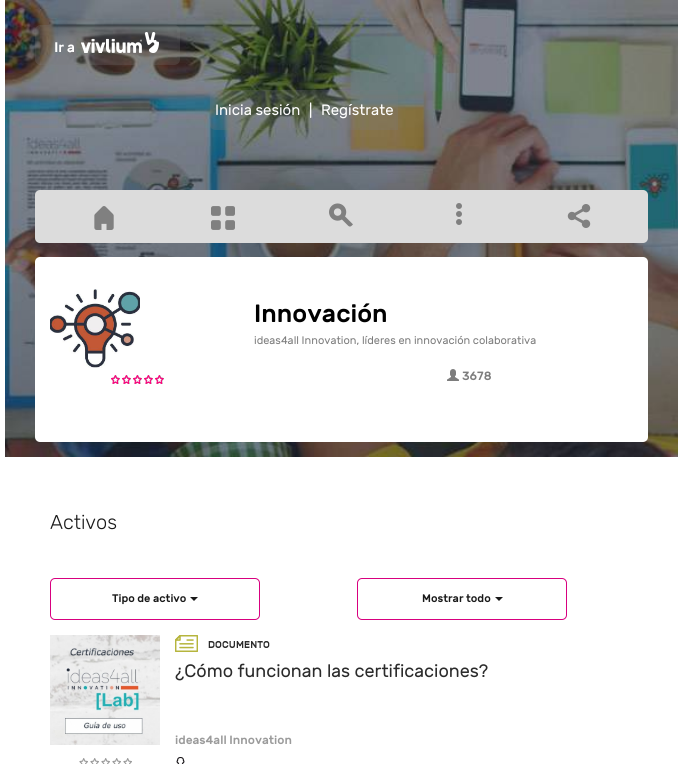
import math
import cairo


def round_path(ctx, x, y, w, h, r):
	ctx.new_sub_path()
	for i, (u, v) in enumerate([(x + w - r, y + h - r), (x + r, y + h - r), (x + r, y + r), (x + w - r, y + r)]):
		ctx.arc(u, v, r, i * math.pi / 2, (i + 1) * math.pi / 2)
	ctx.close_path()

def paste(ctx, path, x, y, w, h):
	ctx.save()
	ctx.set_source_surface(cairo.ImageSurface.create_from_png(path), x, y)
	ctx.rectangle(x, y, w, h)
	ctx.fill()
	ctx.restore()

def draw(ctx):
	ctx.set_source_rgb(1, 1, 1)
	ctx.paint()
	paste(ctx, 'media/1.png', 5, 0, 673, 457)
	paste(ctx, 'media/2.png', 35, 25, 145, 40)
	paste(ctx, 'media/3.png', 210, 90, 188, 40)
	ctx.select_font_face('Rubik')
	ctx.set_font_size(15)
	ctx.set_source_rgb(1, 1, 1)
	ctx.move_to(215, 115)
	ctx.show_text('Inicia sesión')
	ctx.set_font_size(14)
	ctx.move_to(309, 115)
	ctx.show_text('|')
	ctx.set_font_size(15)
	ctx.move_to(321, 115)
	ctx.show_text('Regístrate')
	ctx.set_source_rgb(0.863, 0.863, 0.863)
	round_path(ctx, 35, 190, 613, 53, 5)
	ctx.fill()
	paste(ctx, 'media/4.png', 94, 206, 20, 24)
	paste(ctx, 'media/5.png', 211, 206, 24, 24)
	paste(ctx, 'media/6.png', 329, 203, 24, 24)
	paste(ctx, 'media/7.png', 456, 203, 6, 22)
	paste(ctx, 'media/8.png', 567, 204, 24, 24)
	ctx.set_source_rgb(1, 1, 1)
	round_path(ctx, 35, 257, 613, 185, 5)
	ctx.fill()
	paste(ctx, 'media/9.png', 50, 289, 90, 79)
	paste(ctx, 'media/10.png', 111, 375, 53, 9)
	paste(ctx, 'media/11.png', 111, 375, 53, 9)
	ctx.select_font_face('Rubik Medium')
	ctx.set_font_size(25)
	ctx.set_source_rgb(0, 0, 0)
	ctx.move_to(254, 322)
	ctx.show_text('Innovación')
	ctx.select_font_face('Rubik')
	ctx.set_font_size(11)
	ctx.set_source_rgb(0.49, 0.49, 0.49)
	ctx.move_to(254, 344)
	ctx.show_text('ideas4all Innovation, líderes en innovación colaborativa')
	paste(ctx, 'media/12.png', 447, 369, 12, 12)
	ctx.select_font_face('Rubik Medium')
	ctx.set_font_size(12)
	ctx.move_to(462, 380)
	ctx.show_text('3678')
	ctx.select_font_face('Rubik Light')
	ctx.set_font_size(20)
	ctx.set_source_rgb(0.098, 0.098, 0.098)
	ctx.move_to(50, 529)
	ctx.show_text('Activos')
	round_path(ctx, 50.5, 578.5, 209, 41, 4.5)
	ctx.set_source_rgb(0.847, 0, 0.498)
	ctx.set_line_width(1)
	ctx.stroke()
	ctx.select_font_face('Rubik Medium')
	ctx.set_font_size(11)
	ctx.set_source_rgb(0.098, 0.098, 0.098)
	ctx.move_to(112, 602)
	ctx.show_text('Tipo de activo')
	ctx.new_path()
	ctx.move_to(190, 597)
	ctx.line_to(198, 597)
	ctx.line_to(194, 601)
	ctx.close_path()
	ctx.fill()
	round_path(ctx, 357.5, 578.5, 209, 41, 4.5)
	ctx.set_source_rgb(0.847, 0, 0.498)
	ctx.stroke()
	ctx.set_source_rgb(0.098, 0.098, 0.098)
	ctx.move_to(422, 602)
	ctx.show_text('Mostrar todo')
	ctx.new_path()
	ctx.move_to(495, 597)
	ctx.line_to(503, 597)
	ctx.line_to(499, 601)
	ctx.close_path()
	ctx.fill()
	paste(ctx, 'media/13.png', 50, 635, 110, 110)
	paste(ctx, 'media/14.png', 175, 635, 95, 17)
	ctx.select_font_face('Rubik')
	ctx.set_font_size(18)
	ctx.set_source_rgb(0.169, 0.169, 0.169)
	ctx.move_to(175, 677)
	ctx.show_text('¿Cómo funcionan las certificaciones?')
	ctx.select_font_face('Rubik Medium')
	ctx.set_font_size(12)
	ctx.set_source_rgb(0.608, 0.608, 0.608)
	ctx.move_to(175, 744)
	ctx.show_text('ideas4all Innovation')
	paste(ctx, 'media/15.png', 79, 758, 53, 6)
	paste(ctx, 'media/16.png', 176, 757, 9, 7)


surface = cairo.ImageSurface(cairo.FORMAT_RGB24, 678, 764)
ctx = cairo.Context(surface)
options = cairo.FontOptions()
options.set_hint_metrics(cairo.HINT_METRICS_OFF)
options.set_hint_style(cairo.HINT_STYLE_NONE)
ctx.set_font_options(options)
ctx.set_miter_limit(4)
draw(ctx)
surface.write_to_png('image.png')
